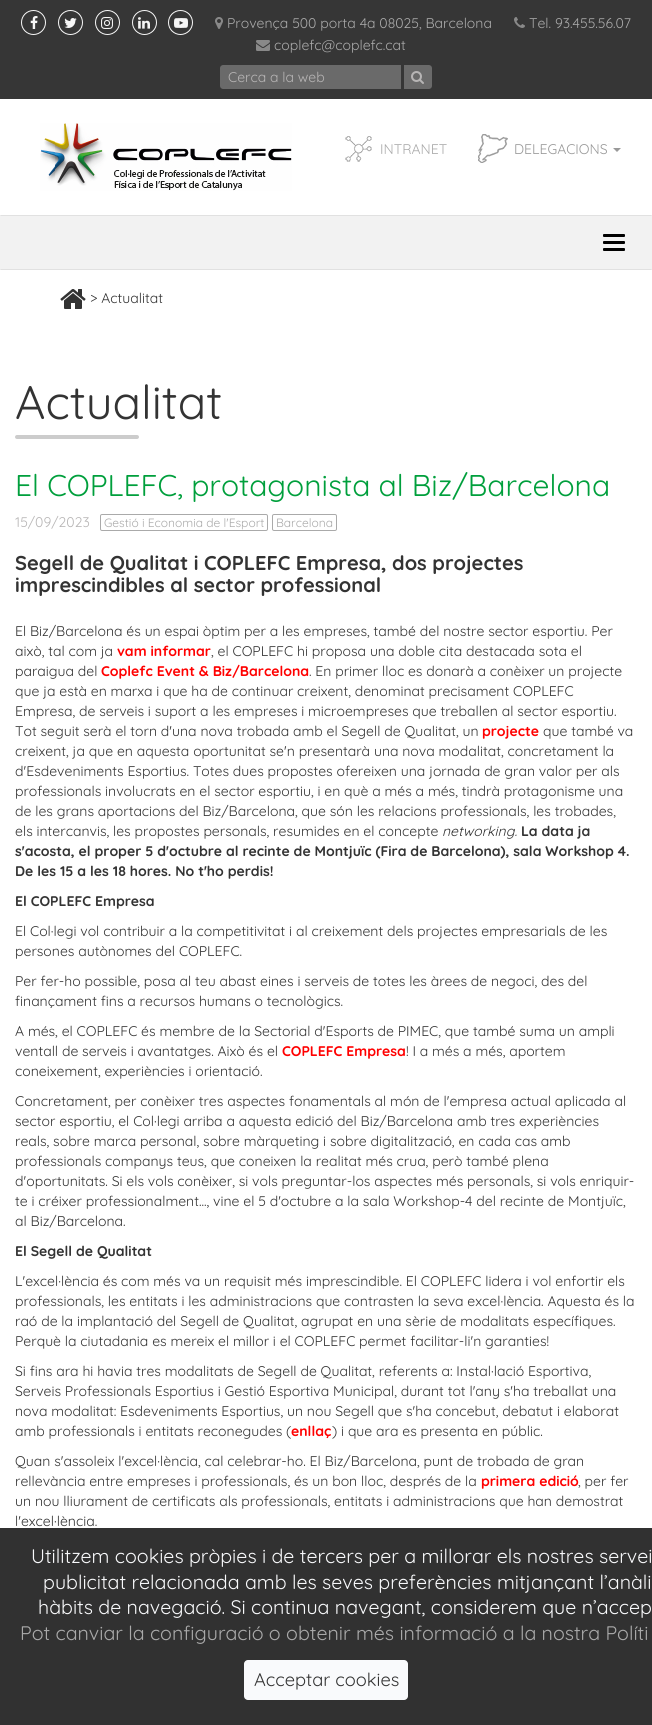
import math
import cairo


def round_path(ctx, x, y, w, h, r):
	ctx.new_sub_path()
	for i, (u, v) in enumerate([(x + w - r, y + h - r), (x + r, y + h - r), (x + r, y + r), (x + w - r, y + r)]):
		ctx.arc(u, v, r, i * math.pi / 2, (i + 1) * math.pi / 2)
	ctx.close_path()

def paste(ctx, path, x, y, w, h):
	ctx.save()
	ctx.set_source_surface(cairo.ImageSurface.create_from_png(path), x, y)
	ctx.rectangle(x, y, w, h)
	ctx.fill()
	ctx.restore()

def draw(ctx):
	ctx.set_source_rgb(1, 1, 1)
	ctx.paint()
	ctx.set_source_rgb(0.212, 0.212, 0.212)
	ctx.rectangle(0, 0, 652, 99)
	ctx.fill()
	ctx.arc(33.5, 22.5, 12, 0, 2 * math.pi)
	ctx.set_source_rgb(0.965, 0.965, 0.965)
	ctx.set_line_width(1)
	ctx.stroke()
	paste(ctx, 'media/1.png', 30, 16, 8, 13)
	ctx.arc(70.5, 22.5, 12, 0, 2 * math.pi)
	ctx.stroke()
	paste(ctx, 'media/2.png', 64, 18, 13, 10)
	ctx.arc(107.5, 22.5, 12, 0, 2 * math.pi)
	ctx.stroke()
	paste(ctx, 'media/3.png', 101, 17, 12, 12)
	ctx.arc(144.5, 22.5, 12, 0, 2 * math.pi)
	ctx.stroke()
	paste(ctx, 'media/4.png', 138, 17, 12, 12)
	ctx.arc(180.5, 22.5, 12, 0, 2 * math.pi)
	ctx.stroke()
	paste(ctx, 'media/5.png', 174, 18, 14, 10)
	paste(ctx, 'media/6.png', 215, 17, 8, 12)
	ctx.select_font_face('Quicksand')
	ctx.set_font_size(14)
	ctx.set_source_rgb(0.667, 0.667, 0.667)
	ctx.move_to(227, 28)
	ctx.show_text('Provença 500 porta 4a 08025, Barcelona')
	paste(ctx, 'media/7.png', 514, 17, 11, 11)
	ctx.move_to(529, 28)
	ctx.show_text('Tel. 93.455.56.07')
	paste(ctx, 'media/8.png', 256, 40, 14, 11)
	ctx.move_to(274, 50)
	ctx.show_text('coplefc@coplefc.cat')
	ctx.set_source_rgb(0.416, 0.416, 0.416)
	ctx.new_path()
	ctx.move_to(223, 65)
	ctx.line_to(401, 65)
	ctx.line_to(401, 89)
	ctx.line_to(223, 89)
	ctx.curve_to(221.5, 89, 220, 87.5, 220, 86)
	ctx.line_to(220, 68)
	ctx.curve_to(220, 66.5, 221.5, 65, 223, 65)
	ctx.close_path()
	ctx.fill()
	ctx.set_source_rgb(0.718, 0.71, 0.71)
	ctx.move_to(228, 82)
	ctx.show_text('Cerca a la web')
	ctx.set_source_rgb(0.416, 0.416, 0.416)
	ctx.new_path()
	ctx.move_to(404, 65)
	ctx.line_to(429, 65)
	ctx.curve_to(430.5, 65, 432, 66.5, 432, 68)
	ctx.line_to(432, 86)
	ctx.curve_to(432, 87.5, 430.5, 89, 429, 89)
	ctx.line_to(404, 89)
	ctx.close_path()
	ctx.fill()
	paste(ctx, 'media/9.png', 411, 71, 13, 13)
	paste(ctx, 'media/10.png', 40, 123, 252, 68)
	paste(ctx, 'media/11.png', 345, 136, 27, 26)
	ctx.set_source_rgb(0.667, 0.667, 0.667)
	ctx.move_to(380, 154)
	ctx.show_text('INTRANET')
	paste(ctx, 'media/12.png', 478, 134, 30, 29)
	ctx.set_source_rgb(0.6, 0.6, 0.6)
	ctx.move_to(514, 154)
	ctx.show_text('DELEGACIONS')
	ctx.new_path()
	ctx.move_to(613, 148)
	ctx.line_to(621, 148)
	ctx.line_to(617, 152)
	ctx.close_path()
	ctx.fill()
	ctx.set_source_rgb(0.949, 0.949, 0.949)
	ctx.rectangle(0, 215, 652, 55)
	ctx.fill()
	ctx.set_source_rgb(0.882, 0.882, 0.882)
	ctx.new_path()
	ctx.move_to(0, 215)
	ctx.line_to(652, 215)
	ctx.line_to(651, 216)
	ctx.line_to(1, 216)
	ctx.close_path()
	ctx.fill()
	ctx.new_path()
	ctx.move_to(652, 270)
	ctx.line_to(0, 270)
	ctx.line_to(1, 269)
	ctx.line_to(651, 269)
	ctx.close_path()
	ctx.fill()
	ctx.set_source_rgb(0, 0, 0)
	round_path(ctx, 603, 234, 22, 3, 1)
	ctx.fill()
	round_path(ctx, 603, 241, 22, 3, 1)
	ctx.fill()
	round_path(ctx, 603, 248, 22, 3, 1)
	ctx.fill()
	paste(ctx, 'media/13.png', 60, 289, 26, 20)
	ctx.set_source_rgb(0.2, 0.2, 0.2)
	ctx.move_to(90, 303)
	ctx.show_text('> Actualitat')
	ctx.set_font_size(47)
	ctx.move_to(15, 419)
	ctx.show_text('Actualitat')
	ctx.set_source_rgb(0.8, 0.8, 0.8)
	round_path(ctx, 15, 435, 124, 4, 2)
	ctx.fill()
	ctx.set_font_size(30)
	ctx.set_source_rgb(0, 0.624, 0.235)
	ctx.move_to(15, 496)
	ctx.show_text('El COPLEFC, protagonista al Biz/Barcelona')
	ctx.set_font_size(14)
	ctx.set_source_rgb(0.718, 0.71, 0.71)
	ctx.move_to(15, 527)
	ctx.show_text('15/09/2023')
	round_path(ctx, 100.5, 514.5, 167, 16, 1.5)
	ctx.set_source_rgb(0.667, 0.667, 0.667)
	ctx.stroke()
	ctx.set_font_size(12)
	ctx.move_to(104, 527)
	ctx.show_text('Gestió i Economia de l\'Esport')
	round_path(ctx, 272.5, 514.5, 64, 16, 1.5)
	ctx.stroke()
	ctx.move_to(276, 527)
	ctx.show_text('Barcelona')
	ctx.select_font_face('Quicksand', cairo.FONT_SLANT_NORMAL, cairo.FONT_WEIGHT_BOLD)
	ctx.set_font_size(20)
	ctx.set_source_rgb(0.2, 0.2, 0.2)
	ctx.move_to(15, 570)
	ctx.show_text('Segell de Qualitat i COPLEFC Empresa, dos projectes')
	ctx.move_to(15, 592)
	ctx.show_text('imprescindibles al sector professional')
	ctx.select_font_face('Quicksand')
	ctx.set_font_size(14)
	ctx.move_to(15, 636)
	ctx.show_text('El Biz/Barcelona és un espai òptim per a les empreses, també del nostre sector esportiu. Per')
	ctx.move_to(15, 656)
	ctx.show_text('això, tal com ja')
	ctx.select_font_face('Quicksand', cairo.FONT_SLANT_NORMAL, cairo.FONT_WEIGHT_BOLD)
	ctx.set_source_rgb(1, 0, 0)
	ctx.move_to(117, 656)
	ctx.show_text('vam informar')
	ctx.select_font_face('Quicksand')
	ctx.set_source_rgb(0.2, 0.2, 0.2)
	ctx.move_to(211, 656)
	ctx.show_text(', el COPLEFC hi proposa una doble cita destacada sota el')
	ctx.move_to(15, 676)
	ctx.show_text('paraigua del')
	ctx.select_font_face('Quicksand', cairo.FONT_SLANT_NORMAL, cairo.FONT_WEIGHT_BOLD)
	ctx.set_source_rgb(1, 0, 0)
	ctx.move_to(101, 676)
	ctx.show_text('Coplefc Event & Biz/Barcelona')
	ctx.select_font_face('Quicksand')
	ctx.set_source_rgb(0.2, 0.2, 0.2)
	for x, y, s in [
		(309, 676, '. En primer lloc es donarà a conèixer un projecte'),
		(15, 696, 'que ja està en marxa i que ha de continuar creixent, denominat precisament COPLEFC'),
		(15, 716, 'Empresa, de serveis i suport a les empreses i microempreses que treballen al sector esportiu.'),
		(15, 736, 'Tot seguit serà el torn d\'una nova trobada amb el Segell de Qualitat, un'),
	]:
		ctx.move_to(x, y)
		ctx.show_text(s)
	ctx.select_font_face('Quicksand', cairo.FONT_SLANT_NORMAL, cairo.FONT_WEIGHT_BOLD)
	ctx.set_source_rgb(1, 0, 0)
	ctx.move_to(482, 736)
	ctx.show_text('projecte')
	ctx.select_font_face('Quicksand')
	ctx.set_source_rgb(0.2, 0.2, 0.2)
	for x, y, s in [
		(543, 736, 'que també va'),
		(15, 756, 'creixent, ja que en aquesta oportunitat se\'n presentarà una nova modalitat, concretament la'),
		(15, 776, 'd\'Esdeveniments Esportius. Totes dues propostes ofereixen una jornada de gran valor per als'),
		(15, 796, 'professionals involucrats en el sector esportiu, i en què a més a més, tindrà protagonisme una'),
		(15, 816, 'de les grans aportacions del Biz/Barcelona, que són les relacions professionals, les trobades,'),
		(15, 836, 'els intercanvis, les propostes personals, resumides en el concepte'),
	]:
		ctx.move_to(x, y)
		ctx.show_text(s)
	ctx.select_font_face('Quicksand', cairo.FONT_SLANT_ITALIC)
	ctx.move_to(442, 836)
	ctx.show_text('networking.')
	ctx.select_font_face('Quicksand', cairo.FONT_SLANT_NORMAL, cairo.FONT_WEIGHT_BOLD)
	for x, y, s in [
		(521, 836, 'La data ja'),
		(15, 856, 's\'acosta, el proper 5 d\'octubre al recinte de Montjuïc (Fira de Barcelona), sala Workshop 4.'),
		(15, 876, 'De les 15 a les 18 hores. No t\'ho perdis!'),
		(15, 906, 'El COPLEFC Empresa'),
	]:
		ctx.move_to(x, y)
		ctx.show_text(s)
	ctx.select_font_face('Quicksand')
	for x, y, s in [
		(15, 936, 'El Col·legi vol contribuir a la competitivitat i al creixement dels projectes empresarials de les'),
		(15, 956, 'persones autònomes del COPLEFC.'),
		(15, 986, 'Per fer-ho possible, posa al teu abast eines i serveis de totes les àrees de negoci, des del'),
		(15, 1006, 'finançament fins a recursos humans o tecnològics.'),
		(15, 1036, 'A més, el COPLEFC és membre de la Sectorial d\'Esports de PIMEC, que també suma un ampli'),
		(15, 1056, 'ventall de serveis i avantatges. Això és el'),
	]:
		ctx.move_to(x, y)
		ctx.show_text(s)
	ctx.select_font_face('Quicksand', cairo.FONT_SLANT_NORMAL, cairo.FONT_WEIGHT_BOLD)
	ctx.set_source_rgb(1, 0, 0)
	ctx.move_to(282, 1056)
	ctx.show_text('COPLEFC Empresa')
	ctx.select_font_face('Quicksand')
	ctx.set_source_rgb(0.2, 0.2, 0.2)
	for x, y, s in [
		(406, 1056, '! I a més a més, aportem'),
		(15, 1076, 'coneixement, experiències i orientació.'),
		(15, 1106, 'Concretament, per conèixer tres aspectes fonamentals al món de l\'empresa actual aplicada al'),
		(15, 1126, 'sector esportiu, el Col·legi arriba a aquesta edició del Biz/Barcelona amb tres experiències'),
		(15, 1146, 'reals, sobre marca personal, sobre màrqueting i sobre digitalització, en cada cas amb'),
		(15, 1166, 'professionals companys teus, que coneixen la realitat més crua, però també plena'),
		(15, 1186, 'd\'oportunitats. Si els vols conèixer, si vols preguntar-los aspectes més personals, si vols enriquir-'),
		(15, 1206, 'te i créixer professionalment..., vine el 5 d\'octubre a la sala Workshop-4 del recinte de Montjuïc,'),
		(15, 1226, 'al Biz/Barcelona.'),
	]:
		ctx.move_to(x, y)
		ctx.show_text(s)
	ctx.select_font_face('Quicksand', cairo.FONT_SLANT_NORMAL, cairo.FONT_WEIGHT_BOLD)
	ctx.move_to(15, 1256)
	ctx.show_text('El Segell de Qualitat')
	ctx.select_font_face('Quicksand')
	for x, y, s in [
		(15, 1286, 'L\'excel·lència és com més va un requisit més imprescindible. El COPLEFC lidera i vol enfortir els'),
		(15, 1306, 'professionals, les entitats i les administracions que contrasten la seva excel·lència. Aquesta és la'),
		(15, 1326, 'raó de la implantació del Segell de Qualitat, agrupat en una sèrie de modalitats específiques.'),
		(15, 1346, 'Perquè la ciutadania es mereix el millor i el COPLEFC permet facilitar-li\'n garanties!'),
		(15, 1376, 'Si fins ara hi havia tres modalitats de Segell de Qualitat, referents a: Instal·lació Esportiva,'),
		(15, 1396, 'Serveis Professionals Esportius i Gestió Esportiva Municipal, durant tot l\'any s\'ha treballat una'),
		(15, 1416, 'nova modalitat: Esdeveniments Esportius, un nou Segell que s\'ha concebut, debatut i elaborat'),
		(15, 1436, 'amb professionals i entitats reconegudes ('),
	]:
		ctx.move_to(x, y)
		ctx.show_text(s)
	ctx.select_font_face('Quicksand', cairo.FONT_SLANT_NORMAL, cairo.FONT_WEIGHT_BOLD)
	ctx.set_source_rgb(1, 0, 0)
	ctx.move_to(291, 1436)
	ctx.show_text('enllaç')
	ctx.select_font_face('Quicksand')
	ctx.set_source_rgb(0.2, 0.2, 0.2)
	for x, y, s in [
		(332, 1436, ') i que ara es presenta en públic.'),
		(15, 1466, 'Quan s\'assoleix l\'excel·lència, cal celebrar-ho. El Biz/Barcelona, punt de trobada de gran'),
		(15, 1486, 'rellevància entre empreses i professionals, és un bon lloc, després de la'),
	]:
		ctx.move_to(x, y)
		ctx.show_text(s)
	ctx.select_font_face('Quicksand', cairo.FONT_SLANT_NORMAL, cairo.FONT_WEIGHT_BOLD)
	ctx.set_source_rgb(1, 0, 0)
	ctx.move_to(481, 1486)
	ctx.show_text('primera edició')
	ctx.select_font_face('Quicksand')
	ctx.set_source_rgb(0.2, 0.2, 0.2)
	for x, y, s in [
		(578, 1486, ', per fer'),
		(15, 1506, 'un nou lliurament de certificats als professionals, entitats i administracions que han demostrat'),
		(15, 1526, 'l\'excel·lència.'),
	]:
		ctx.move_to(x, y)
		ctx.show_text(s)
	ctx.set_source_rgb(0.192, 0.192, 0.192)
	ctx.rectangle(0, 1528, 652, 197)
	ctx.fill()
	ctx.set_font_size(19.6)
	ctx.set_source_rgb(0.976, 0.98, 0.988)
	for x, y, s in [
		(31, 1563, 'Utilitzem cookies pròpies i de tercers per a millorar els nostres servei'),
		(43, 1589, 'publicitat relacionada amb les seves preferències mitjançant l’anàli'),
		(38, 1614, 'hàbits de navegació. Si continua navegant, considerem que n’accep'),
	]:
		ctx.move_to(x, y)
		ctx.show_text(s)
	ctx.set_source_rgb(0.667, 0.667, 0.667)
	ctx.move_to(20, 1640)
	ctx.show_text('Pot canviar la configuració o obtenir més informació a la nostra Políti')
	ctx.set_source_rgb(0.976, 0.98, 0.988)
	round_path(ctx, 244, 1660, 164, 40, 4)
	ctx.fill()
	ctx.set_font_size(18.25)
	ctx.set_source_rgb(0.2, 0.2, 0.2)
	ctx.move_to(254, 1686)
	ctx.show_text('Acceptar cookies')


surface = cairo.ImageSurface(cairo.FORMAT_RGB24, 652, 1725)
ctx = cairo.Context(surface)
options = cairo.FontOptions()
options.set_hint_metrics(cairo.HINT_METRICS_OFF)
options.set_hint_style(cairo.HINT_STYLE_NONE)
ctx.set_font_options(options)
ctx.set_miter_limit(4)
draw(ctx)
surface.write_to_png('image.png')
